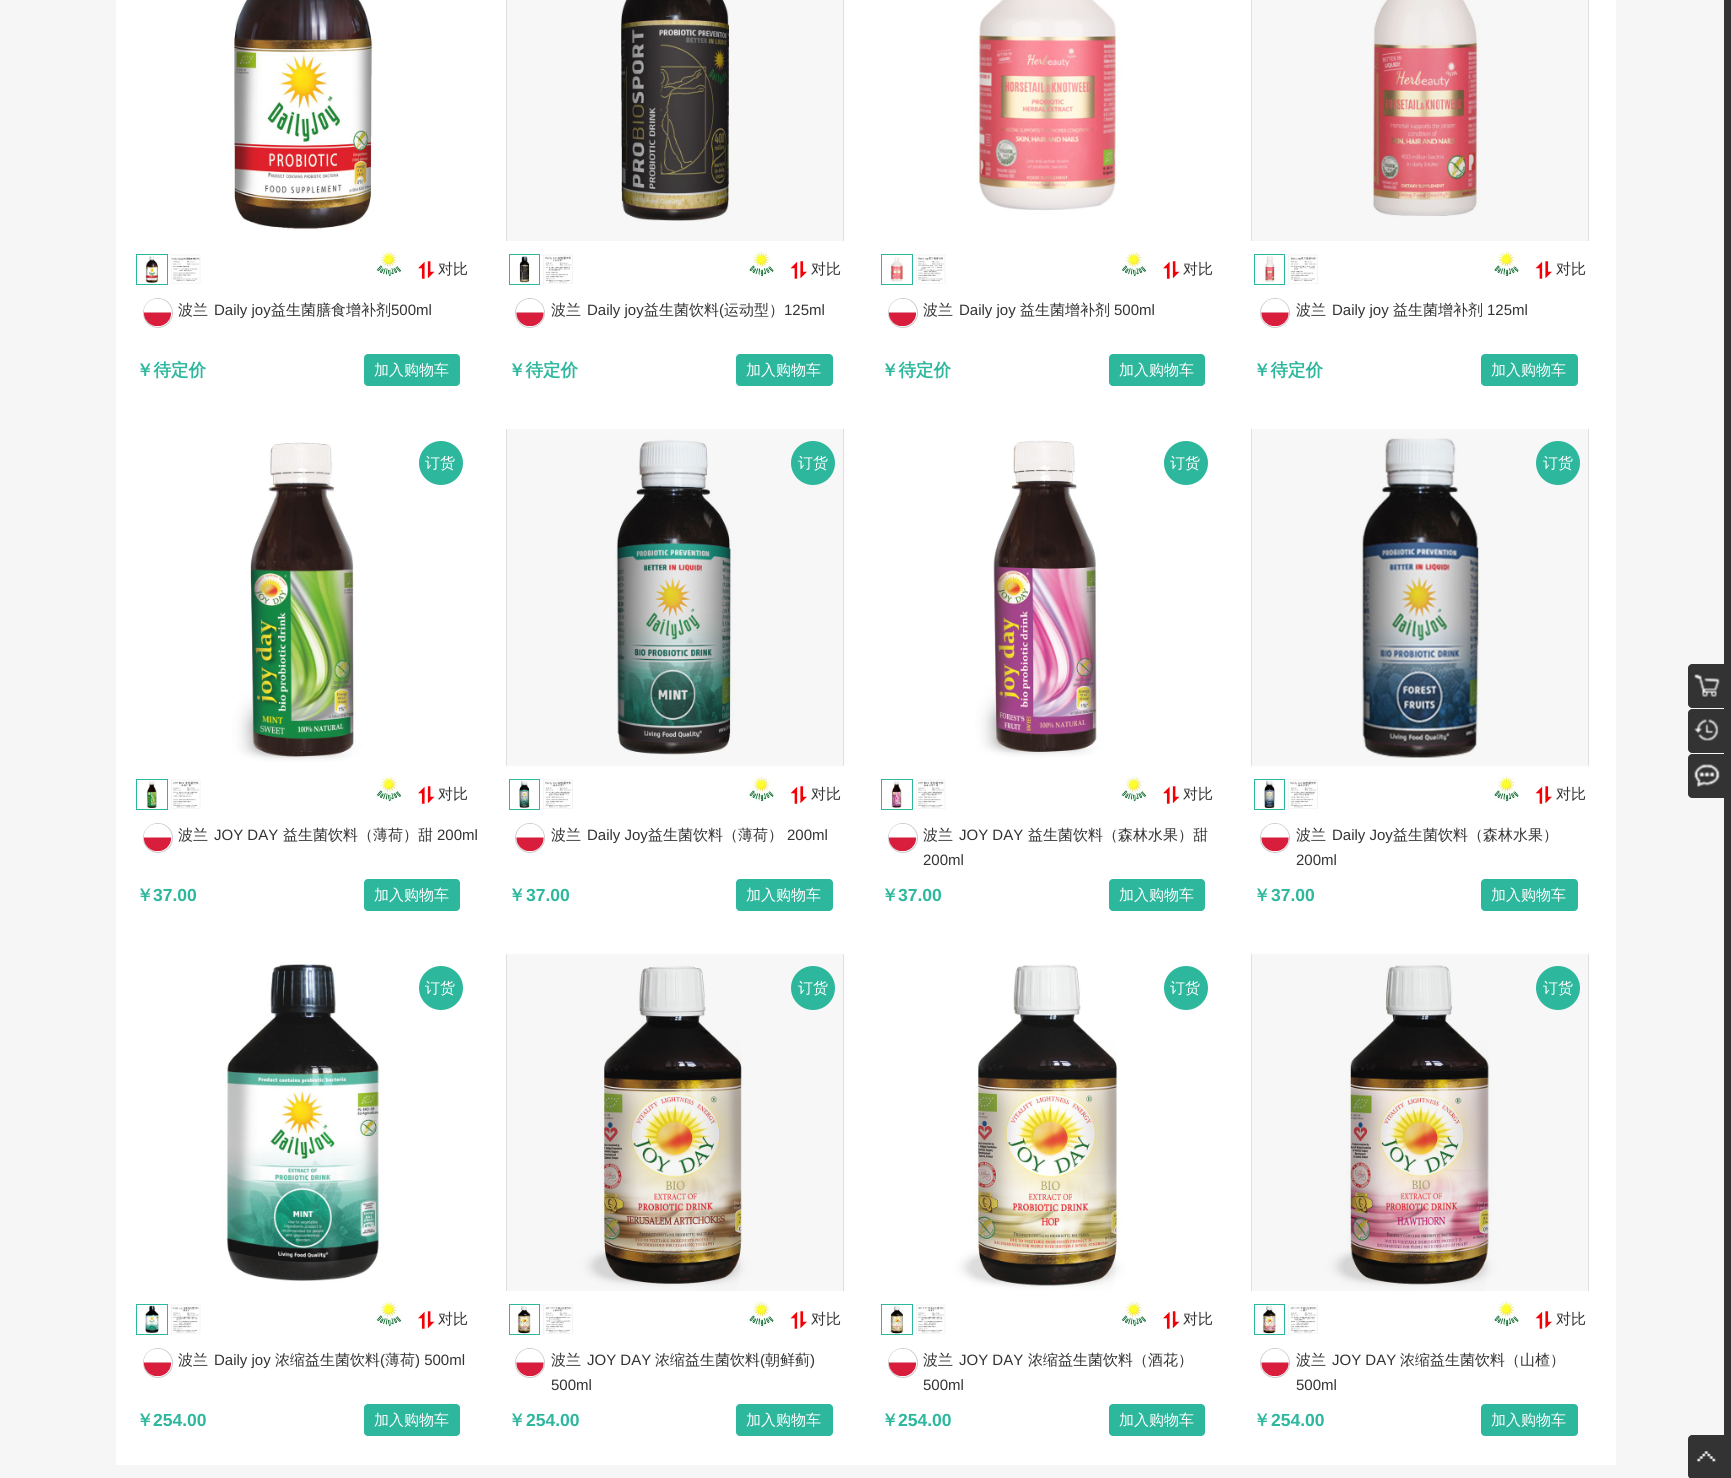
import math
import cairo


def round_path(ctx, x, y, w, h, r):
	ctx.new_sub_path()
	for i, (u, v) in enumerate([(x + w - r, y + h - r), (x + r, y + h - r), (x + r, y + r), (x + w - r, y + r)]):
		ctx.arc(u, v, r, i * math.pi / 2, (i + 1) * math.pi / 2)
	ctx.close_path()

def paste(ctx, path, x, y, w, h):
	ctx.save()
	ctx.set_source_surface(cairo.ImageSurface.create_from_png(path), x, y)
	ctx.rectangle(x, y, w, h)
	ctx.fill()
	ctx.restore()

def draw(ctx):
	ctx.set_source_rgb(0.961, 0.961, 0.961)
	ctx.paint()
	ctx.set_source_rgb(1, 1, 1)
	ctx.rectangle(116, 0, 1500, 1465)
	ctx.fill()
	paste(ctx, 'media/1.png', 134, 0, 337, 241)
	ctx.rectangle(136.5, 254.5, 31, 30)
	ctx.set_source_rgb(0.176, 0.718, 0.616)
	ctx.set_line_width(1)
	ctx.stroke()
	paste(ctx, 'media/2.png', 145, 256, 13, 27)
	paste(ctx, 'media/3.png', 171, 254, 30, 30)
	paste(ctx, 'media/4.png', 376, 249, 26, 28)
	paste(ctx, 'media/5.png', 418, 261, 17, 18)
	ctx.select_font_face('WenQuanYi Zen Hei Medium')
	ctx.set_font_size(15)
	ctx.set_source_rgb(0.2, 0.2, 0.2)
	ctx.move_to(438, 274)
	ctx.show_text('对比')
	ctx.new_path()
	ctx.arc(158, 313, 14.5, 0, 2 * math.pi)
	ctx.set_source_rgb(0.8, 0.8, 0.8)
	ctx.stroke()
	paste(ctx, 'media/6.png', 143, 299, 29, 28)
	ctx.set_source_rgb(0.2, 0.2, 0.2)
	ctx.move_to(178, 315)
	ctx.show_text('波兰')
	ctx.select_font_face('Liberation Sans')
	ctx.move_to(214, 315)
	ctx.show_text('Daily joy')
	ctx.select_font_face('WenQuanYi Zen Hei Medium')
	ctx.move_to(271, 315)
	ctx.show_text('益生菌膳食增补剂')
	ctx.select_font_face('Liberation Sans')
	ctx.move_to(391, 315)
	ctx.show_text('500ml')
	ctx.select_font_face('WenQuanYi Zen Hei', cairo.FONT_SLANT_NORMAL, cairo.FONT_WEIGHT_BOLD)
	ctx.set_font_size(17.5)
	ctx.set_source_rgb(0.176, 0.718, 0.616)
	ctx.move_to(136, 376)
	ctx.show_text('￥待定价')
	round_path(ctx, 364.5, 354.5, 95, 31, 3.5)
	ctx.fill_preserve()
	ctx.stroke()
	ctx.select_font_face('WenQuanYi Zen Hei Medium')
	ctx.set_font_size(15)
	ctx.set_source_rgb(1, 1, 1)
	ctx.move_to(374, 375)
	ctx.show_text('加入购物车')
	ctx.set_source_rgb(0.6, 0.6, 0.6)
	ctx.rectangle(506, 0, 338, 241)
	ctx.fill()
	paste(ctx, 'media/7.png', 506, 0, 338, 241)
	ctx.rectangle(509.5, 254.5, 30, 30)
	ctx.set_source_rgb(0.176, 0.718, 0.616)
	ctx.stroke()
	paste(ctx, 'media/8.png', 519, 256, 11, 27)
	paste(ctx, 'media/9.png', 543, 254, 30, 30)
	paste(ctx, 'media/10.png', 748, 250, 27, 28)
	paste(ctx, 'media/11.png', 790, 261, 17, 18)
	ctx.set_source_rgb(0.2, 0.2, 0.2)
	ctx.move_to(811, 274)
	ctx.show_text('对比')
	ctx.new_path()
	ctx.arc(530, 313, 14.5, 0, 2 * math.pi)
	ctx.set_source_rgb(0.8, 0.8, 0.8)
	ctx.stroke()
	paste(ctx, 'media/12.png', 516, 299, 28, 28)
	ctx.set_source_rgb(0.2, 0.2, 0.2)
	ctx.move_to(551, 315)
	ctx.show_text('波兰')
	ctx.select_font_face('Liberation Sans')
	ctx.move_to(587, 315)
	ctx.show_text('Daily joy')
	ctx.select_font_face('WenQuanYi Zen Hei Medium')
	ctx.move_to(644, 315)
	ctx.show_text('益生菌饮料')
	ctx.select_font_face('Liberation Sans')
	ctx.move_to(719, 315)
	ctx.show_text('(')
	ctx.select_font_face('WenQuanYi Zen Hei Medium')
	ctx.move_to(724, 315)
	ctx.show_text('运动型）')
	ctx.select_font_face('Liberation Sans')
	ctx.move_to(784, 315)
	ctx.show_text('125ml')
	ctx.select_font_face('WenQuanYi Zen Hei', cairo.FONT_SLANT_NORMAL, cairo.FONT_WEIGHT_BOLD)
	ctx.set_font_size(17.5)
	ctx.set_source_rgb(0.176, 0.718, 0.616)
	ctx.move_to(508, 376)
	ctx.show_text('￥待定价')
	round_path(ctx, 736.5, 354.5, 96, 31, 3.5)
	ctx.fill_preserve()
	ctx.stroke()
	ctx.select_font_face('WenQuanYi Zen Hei Medium')
	ctx.set_font_size(15)
	ctx.set_source_rgb(1, 1, 1)
	ctx.move_to(746, 375)
	ctx.show_text('加入购物车')
	paste(ctx, 'media/13.png', 879, 0, 337, 241)
	ctx.rectangle(881.5, 254.5, 31, 30)
	ctx.set_source_rgb(0.176, 0.718, 0.616)
	ctx.stroke()
	paste(ctx, 'media/14.png', 890, 257, 13, 25)
	paste(ctx, 'media/15.png', 916, 254, 30, 30)
	paste(ctx, 'media/4.png', 1121, 249, 26, 28)
	paste(ctx, 'media/5.png', 1163, 261, 17, 18)
	ctx.set_source_rgb(0.2, 0.2, 0.2)
	ctx.move_to(1183, 274)
	ctx.show_text('对比')
	ctx.new_path()
	ctx.arc(903, 313, 14.5, 0, 2 * math.pi)
	ctx.set_source_rgb(0.8, 0.8, 0.8)
	ctx.stroke()
	paste(ctx, 'media/6.png', 888, 299, 29, 28)
	ctx.set_source_rgb(0.2, 0.2, 0.2)
	ctx.move_to(923, 315)
	ctx.show_text('波兰')
	ctx.select_font_face('Liberation Sans')
	ctx.move_to(959, 315)
	ctx.show_text('Daily joy')
	ctx.select_font_face('WenQuanYi Zen Hei Medium')
	ctx.move_to(1020, 315)
	ctx.show_text('益生菌增补剂')
	ctx.select_font_face('Liberation Sans')
	ctx.move_to(1114, 315)
	ctx.show_text('500ml')
	ctx.select_font_face('WenQuanYi Zen Hei', cairo.FONT_SLANT_NORMAL, cairo.FONT_WEIGHT_BOLD)
	ctx.set_font_size(17.5)
	ctx.set_source_rgb(0.176, 0.718, 0.616)
	ctx.move_to(881, 376)
	ctx.show_text('￥待定价')
	round_path(ctx, 1109.5, 354.5, 95, 31, 3.5)
	ctx.fill_preserve()
	ctx.stroke()
	ctx.select_font_face('WenQuanYi Zen Hei Medium')
	ctx.set_font_size(15)
	ctx.set_source_rgb(1, 1, 1)
	ctx.move_to(1119, 375)
	ctx.show_text('加入购物车')
	ctx.set_source_rgb(0.6, 0.6, 0.6)
	ctx.rectangle(1251, 0, 338, 241)
	ctx.fill()
	paste(ctx, 'media/16.png', 1251, 0, 338, 241)
	ctx.rectangle(1254.5, 254.5, 30, 30)
	ctx.set_source_rgb(0.176, 0.718, 0.616)
	ctx.stroke()
	paste(ctx, 'media/17.png', 1265, 256, 10, 26)
	paste(ctx, 'media/18.png', 1288, 254, 30, 30)
	paste(ctx, 'media/19.png', 1493, 250, 27, 28)
	paste(ctx, 'media/11.png', 1535, 261, 17, 18)
	ctx.set_source_rgb(0.2, 0.2, 0.2)
	ctx.move_to(1556, 274)
	ctx.show_text('对比')
	ctx.new_path()
	ctx.arc(1275, 313, 14.5, 0, 2 * math.pi)
	ctx.set_source_rgb(0.8, 0.8, 0.8)
	ctx.stroke()
	paste(ctx, 'media/20.png', 1261, 299, 28, 28)
	ctx.set_source_rgb(0.2, 0.2, 0.2)
	ctx.move_to(1296, 315)
	ctx.show_text('波兰')
	ctx.select_font_face('Liberation Sans')
	ctx.move_to(1332, 315)
	ctx.show_text('Daily joy')
	ctx.select_font_face('WenQuanYi Zen Hei Medium')
	ctx.move_to(1393, 315)
	ctx.show_text('益生菌增补剂')
	ctx.select_font_face('Liberation Sans')
	ctx.move_to(1487, 315)
	ctx.show_text('125ml')
	ctx.select_font_face('WenQuanYi Zen Hei', cairo.FONT_SLANT_NORMAL, cairo.FONT_WEIGHT_BOLD)
	ctx.set_font_size(17.5)
	ctx.set_source_rgb(0.176, 0.718, 0.616)
	ctx.move_to(1253, 376)
	ctx.show_text('￥待定价')
	round_path(ctx, 1481.5, 354.5, 96, 31, 3.5)
	ctx.fill_preserve()
	ctx.stroke()
	ctx.select_font_face('WenQuanYi Zen Hei Medium')
	ctx.set_font_size(15)
	ctx.set_source_rgb(1, 1, 1)
	ctx.move_to(1491, 375)
	ctx.show_text('加入购物车')
	paste(ctx, 'media/21.png', 134, 429, 337, 337)
	ctx.set_source_rgb(0.176, 0.718, 0.616)
	ctx.arc(441, 463, 22, 0, 2 * math.pi)
	ctx.fill()
	ctx.set_source_rgb(1, 1, 1)
	ctx.move_to(425, 468)
	ctx.show_text('订货')
	ctx.rectangle(136.5, 779.5, 31, 30)
	ctx.set_source_rgb(0.176, 0.718, 0.616)
	ctx.stroke()
	paste(ctx, 'media/22.png', 146, 781, 11, 28)
	paste(ctx, 'media/23.png', 171, 779, 30, 30)
	paste(ctx, 'media/24.png', 376, 774, 26, 28)
	paste(ctx, 'media/5.png', 418, 786, 17, 18)
	ctx.set_source_rgb(0.2, 0.2, 0.2)
	ctx.move_to(438, 799)
	ctx.show_text('对比')
	ctx.new_path()
	ctx.arc(158, 838, 14.5, 0, 2 * math.pi)
	ctx.set_source_rgb(0.8, 0.8, 0.8)
	ctx.stroke()
	paste(ctx, 'media/6.png', 143, 824, 29, 28)
	ctx.set_source_rgb(0.2, 0.2, 0.2)
	ctx.move_to(178, 840)
	ctx.show_text('波兰')
	ctx.select_font_face('Liberation Sans')
	ctx.move_to(214, 840)
	ctx.show_text('JOY DAY')
	ctx.select_font_face('WenQuanYi Zen Hei Medium')
	ctx.move_to(283, 840)
	ctx.show_text('益生菌饮料（薄荷）甜')
	ctx.select_font_face('Liberation Sans')
	ctx.move_to(437, 840)
	ctx.show_text('200ml')
	ctx.select_font_face('WenQuanYi Zen Hei', cairo.FONT_SLANT_NORMAL, cairo.FONT_WEIGHT_BOLD)
	ctx.set_font_size(17.5)
	ctx.set_source_rgb(0.176, 0.718, 0.616)
	ctx.move_to(136, 901)
	ctx.show_text('￥')
	ctx.select_font_face('Liberation Sans', cairo.FONT_SLANT_NORMAL, cairo.FONT_WEIGHT_BOLD)
	ctx.move_to(153, 901)
	ctx.show_text('37.00')
	round_path(ctx, 364.5, 879.5, 95, 31, 3.5)
	ctx.fill_preserve()
	ctx.stroke()
	ctx.select_font_face('WenQuanYi Zen Hei Medium')
	ctx.set_font_size(15)
	ctx.set_source_rgb(1, 1, 1)
	ctx.move_to(374, 900)
	ctx.show_text('加入购物车')
	ctx.set_source_rgb(0.6, 0.6, 0.6)
	ctx.rectangle(506, 429, 338, 337)
	ctx.fill()
	paste(ctx, 'media/25.png', 506, 429, 338, 337)
	ctx.set_source_rgb(0.176, 0.718, 0.616)
	ctx.arc(813, 463, 22, 0, 2 * math.pi)
	ctx.fill()
	ctx.set_source_rgb(1, 1, 1)
	ctx.move_to(798, 468)
	ctx.show_text('订货')
	ctx.rectangle(509.5, 779.5, 30, 30)
	ctx.set_source_rgb(0.176, 0.718, 0.616)
	ctx.stroke()
	paste(ctx, 'media/26.png', 519, 781, 11, 27)
	paste(ctx, 'media/27.png', 543, 779, 30, 30)
	paste(ctx, 'media/28.png', 748, 775, 27, 28)
	paste(ctx, 'media/11.png', 790, 786, 17, 18)
	ctx.set_source_rgb(0.2, 0.2, 0.2)
	ctx.move_to(811, 799)
	ctx.show_text('对比')
	ctx.new_path()
	ctx.arc(530, 838, 14.5, 0, 2 * math.pi)
	ctx.set_source_rgb(0.8, 0.8, 0.8)
	ctx.stroke()
	paste(ctx, 'media/12.png', 516, 824, 28, 28)
	ctx.set_source_rgb(0.2, 0.2, 0.2)
	ctx.move_to(551, 840)
	ctx.show_text('波兰')
	ctx.select_font_face('Liberation Sans')
	ctx.move_to(587, 840)
	ctx.show_text('Daily Joy')
	ctx.select_font_face('WenQuanYi Zen Hei Medium')
	ctx.move_to(648, 840)
	ctx.show_text('益生菌饮料（薄荷）')
	ctx.select_font_face('Liberation Sans')
	ctx.move_to(787, 840)
	ctx.show_text('200ml')
	ctx.select_font_face('WenQuanYi Zen Hei', cairo.FONT_SLANT_NORMAL, cairo.FONT_WEIGHT_BOLD)
	ctx.set_font_size(17.5)
	ctx.set_source_rgb(0.176, 0.718, 0.616)
	ctx.move_to(508, 901)
	ctx.show_text('￥')
	ctx.select_font_face('Liberation Sans', cairo.FONT_SLANT_NORMAL, cairo.FONT_WEIGHT_BOLD)
	ctx.move_to(526, 901)
	ctx.show_text('37.00')
	round_path(ctx, 736.5, 879.5, 96, 31, 3.5)
	ctx.fill_preserve()
	ctx.stroke()
	ctx.select_font_face('WenQuanYi Zen Hei Medium')
	ctx.set_font_size(15)
	ctx.set_source_rgb(1, 1, 1)
	ctx.move_to(746, 900)
	ctx.show_text('加入购物车')
	paste(ctx, 'media/29.png', 879, 429, 337, 337)
	ctx.set_source_rgb(0.176, 0.718, 0.616)
	ctx.arc(1186, 463, 22, 0, 2 * math.pi)
	ctx.fill()
	ctx.set_source_rgb(1, 1, 1)
	ctx.move_to(1170, 468)
	ctx.show_text('订货')
	ctx.rectangle(881.5, 779.5, 31, 30)
	ctx.set_source_rgb(0.176, 0.718, 0.616)
	ctx.stroke()
	paste(ctx, 'media/30.png', 891, 781, 11, 27)
	paste(ctx, 'media/31.png', 916, 779, 30, 30)
	paste(ctx, 'media/24.png', 1121, 774, 26, 28)
	paste(ctx, 'media/5.png', 1163, 786, 17, 18)
	ctx.set_source_rgb(0.2, 0.2, 0.2)
	ctx.move_to(1183, 799)
	ctx.show_text('对比')
	ctx.new_path()
	ctx.arc(903, 838, 14.5, 0, 2 * math.pi)
	ctx.set_source_rgb(0.8, 0.8, 0.8)
	ctx.stroke()
	paste(ctx, 'media/6.png', 888, 824, 29, 28)
	ctx.set_source_rgb(0.2, 0.2, 0.2)
	ctx.move_to(923, 840)
	ctx.show_text('波兰')
	ctx.select_font_face('Liberation Sans')
	ctx.move_to(959, 840)
	ctx.show_text('JOY DAY')
	ctx.select_font_face('WenQuanYi Zen Hei Medium')
	ctx.move_to(1028, 840)
	ctx.show_text('益生菌饮料（森林水果）甜')
	ctx.select_font_face('Liberation Sans')
	ctx.move_to(923, 865)
	ctx.show_text('200ml')
	ctx.select_font_face('WenQuanYi Zen Hei', cairo.FONT_SLANT_NORMAL, cairo.FONT_WEIGHT_BOLD)
	ctx.set_font_size(17.5)
	ctx.set_source_rgb(0.176, 0.718, 0.616)
	ctx.move_to(881, 901)
	ctx.show_text('￥')
	ctx.select_font_face('Liberation Sans', cairo.FONT_SLANT_NORMAL, cairo.FONT_WEIGHT_BOLD)
	ctx.move_to(898, 901)
	ctx.show_text('37.00')
	round_path(ctx, 1109.5, 879.5, 95, 31, 3.5)
	ctx.fill_preserve()
	ctx.stroke()
	ctx.select_font_face('WenQuanYi Zen Hei Medium')
	ctx.set_font_size(15)
	ctx.set_source_rgb(1, 1, 1)
	ctx.move_to(1119, 900)
	ctx.show_text('加入购物车')
	ctx.set_source_rgb(0.6, 0.6, 0.6)
	ctx.rectangle(1251, 429, 338, 337)
	ctx.fill()
	paste(ctx, 'media/32.png', 1251, 429, 338, 337)
	ctx.set_source_rgb(0.176, 0.718, 0.616)
	ctx.arc(1558, 463, 22, 0, 2 * math.pi)
	ctx.fill()
	ctx.set_source_rgb(1, 1, 1)
	ctx.move_to(1543, 468)
	ctx.show_text('订货')
	ctx.rectangle(1254.5, 779.5, 30, 30)
	ctx.set_source_rgb(0.176, 0.718, 0.616)
	ctx.stroke()
	paste(ctx, 'media/33.png', 1264, 780, 11, 28)
	paste(ctx, 'media/34.png', 1288, 779, 30, 30)
	paste(ctx, 'media/35.png', 1493, 775, 27, 28)
	paste(ctx, 'media/11.png', 1535, 786, 17, 18)
	ctx.set_source_rgb(0.2, 0.2, 0.2)
	ctx.move_to(1556, 799)
	ctx.show_text('对比')
	ctx.new_path()
	ctx.arc(1275, 838, 14.5, 0, 2 * math.pi)
	ctx.set_source_rgb(0.8, 0.8, 0.8)
	ctx.stroke()
	paste(ctx, 'media/20.png', 1261, 824, 28, 28)
	ctx.set_source_rgb(0.2, 0.2, 0.2)
	ctx.move_to(1296, 840)
	ctx.show_text('波兰')
	ctx.select_font_face('Liberation Sans')
	ctx.move_to(1332, 840)
	ctx.show_text('Daily Joy')
	ctx.select_font_face('WenQuanYi Zen Hei Medium')
	ctx.move_to(1393, 840)
	ctx.show_text('益生菌饮料（森林水果）')
	ctx.select_font_face('Liberation Sans')
	ctx.move_to(1296, 865)
	ctx.show_text('200ml')
	ctx.select_font_face('WenQuanYi Zen Hei', cairo.FONT_SLANT_NORMAL, cairo.FONT_WEIGHT_BOLD)
	ctx.set_font_size(17.5)
	ctx.set_source_rgb(0.176, 0.718, 0.616)
	ctx.move_to(1253, 901)
	ctx.show_text('￥')
	ctx.select_font_face('Liberation Sans', cairo.FONT_SLANT_NORMAL, cairo.FONT_WEIGHT_BOLD)
	ctx.move_to(1271, 901)
	ctx.show_text('37.00')
	round_path(ctx, 1481.5, 879.5, 96, 31, 3.5)
	ctx.fill_preserve()
	ctx.stroke()
	ctx.select_font_face('WenQuanYi Zen Hei Medium')
	ctx.set_font_size(15)
	ctx.set_source_rgb(1, 1, 1)
	ctx.move_to(1491, 900)
	ctx.show_text('加入购物车')
	paste(ctx, 'media/36.png', 134, 954, 337, 337)
	ctx.set_source_rgb(0.176, 0.718, 0.616)
	ctx.arc(441, 988, 22, 0, 2 * math.pi)
	ctx.fill()
	ctx.set_source_rgb(1, 1, 1)
	ctx.move_to(425, 993)
	ctx.show_text('订货')
	ctx.rectangle(136.5, 1304.5, 31, 30)
	ctx.set_source_rgb(0.176, 0.718, 0.616)
	ctx.stroke()
	paste(ctx, 'media/37.png', 145, 1305, 14, 28)
	paste(ctx, 'media/38.png', 171, 1304, 30, 30)
	paste(ctx, 'media/4.png', 376, 1299, 26, 28)
	paste(ctx, 'media/5.png', 418, 1311, 17, 18)
	ctx.set_source_rgb(0.2, 0.2, 0.2)
	ctx.move_to(438, 1324)
	ctx.show_text('对比')
	ctx.new_path()
	ctx.arc(158, 1363, 14.5, 0, 2 * math.pi)
	ctx.set_source_rgb(0.8, 0.8, 0.8)
	ctx.stroke()
	paste(ctx, 'media/6.png', 143, 1349, 29, 28)
	ctx.set_source_rgb(0.2, 0.2, 0.2)
	ctx.move_to(178, 1365)
	ctx.show_text('波兰')
	ctx.select_font_face('Liberation Sans')
	ctx.move_to(214, 1365)
	ctx.show_text('Daily joy')
	ctx.select_font_face('WenQuanYi Zen Hei Medium')
	ctx.move_to(275, 1365)
	ctx.show_text('浓缩益生菌饮料')
	ctx.select_font_face('Liberation Sans')
	ctx.move_to(380, 1365)
	ctx.show_text('(')
	ctx.select_font_face('WenQuanYi Zen Hei Medium')
	ctx.move_to(385, 1365)
	ctx.show_text('薄荷')
	ctx.select_font_face('Liberation Sans')
	ctx.move_to(415, 1365)
	ctx.show_text(') 500ml')
	ctx.select_font_face('WenQuanYi Zen Hei', cairo.FONT_SLANT_NORMAL, cairo.FONT_WEIGHT_BOLD)
	ctx.set_font_size(17.5)
	ctx.set_source_rgb(0.176, 0.718, 0.616)
	ctx.move_to(136, 1426)
	ctx.show_text('￥')
	ctx.select_font_face('Liberation Sans', cairo.FONT_SLANT_NORMAL, cairo.FONT_WEIGHT_BOLD)
	ctx.move_to(153, 1426)
	ctx.show_text('254.00')
	round_path(ctx, 364.5, 1404.5, 95, 31, 3.5)
	ctx.fill_preserve()
	ctx.stroke()
	ctx.select_font_face('WenQuanYi Zen Hei Medium')
	ctx.set_font_size(15)
	ctx.set_source_rgb(1, 1, 1)
	ctx.move_to(374, 1425)
	ctx.show_text('加入购物车')
	ctx.set_source_rgb(0.6, 0.6, 0.6)
	ctx.rectangle(506, 954, 338, 337)
	ctx.fill()
	paste(ctx, 'media/39.png', 506, 954, 338, 337)
	ctx.set_source_rgb(0.176, 0.718, 0.616)
	ctx.arc(813, 988, 22, 0, 2 * math.pi)
	ctx.fill()
	ctx.set_source_rgb(1, 1, 1)
	ctx.move_to(798, 993)
	ctx.show_text('订货')
	ctx.rectangle(509.5, 1304.5, 30, 30)
	ctx.set_source_rgb(0.176, 0.718, 0.616)
	ctx.stroke()
	paste(ctx, 'media/40.png', 517, 1306, 14, 28)
	paste(ctx, 'media/41.png', 543, 1304, 30, 30)
	paste(ctx, 'media/10.png', 748, 1300, 27, 28)
	paste(ctx, 'media/11.png', 790, 1311, 17, 18)
	ctx.set_source_rgb(0.2, 0.2, 0.2)
	ctx.move_to(811, 1324)
	ctx.show_text('对比')
	ctx.new_path()
	ctx.arc(530, 1363, 14.5, 0, 2 * math.pi)
	ctx.set_source_rgb(0.8, 0.8, 0.8)
	ctx.stroke()
	paste(ctx, 'media/12.png', 516, 1349, 28, 28)
	ctx.set_source_rgb(0.2, 0.2, 0.2)
	ctx.move_to(551, 1365)
	ctx.show_text('波兰')
	ctx.select_font_face('Liberation Sans')
	ctx.move_to(587, 1365)
	ctx.show_text('JOY DAY')
	ctx.select_font_face('WenQuanYi Zen Hei Medium')
	ctx.move_to(655, 1365)
	ctx.show_text('浓缩益生菌饮料')
	ctx.select_font_face('Liberation Sans')
	ctx.move_to(760, 1365)
	ctx.show_text('(')
	ctx.select_font_face('WenQuanYi Zen Hei Medium')
	ctx.move_to(765, 1365)
	ctx.show_text('朝鲜蓟')
	ctx.select_font_face('Liberation Sans')
	ctx.move_to(810, 1365)
	ctx.show_text(')')
	ctx.move_to(551, 1390)
	ctx.show_text('500ml')
	ctx.select_font_face('WenQuanYi Zen Hei', cairo.FONT_SLANT_NORMAL, cairo.FONT_WEIGHT_BOLD)
	ctx.set_font_size(17.5)
	ctx.set_source_rgb(0.176, 0.718, 0.616)
	ctx.move_to(508, 1426)
	ctx.show_text('￥')
	ctx.select_font_face('Liberation Sans', cairo.FONT_SLANT_NORMAL, cairo.FONT_WEIGHT_BOLD)
	ctx.move_to(526, 1426)
	ctx.show_text('254.00')
	round_path(ctx, 736.5, 1404.5, 96, 31, 3.5)
	ctx.fill_preserve()
	ctx.stroke()
	ctx.select_font_face('WenQuanYi Zen Hei Medium')
	ctx.set_font_size(15)
	ctx.set_source_rgb(1, 1, 1)
	ctx.move_to(746, 1425)
	ctx.show_text('加入购物车')
	paste(ctx, 'media/42.png', 879, 954, 337, 337)
	ctx.set_source_rgb(0.176, 0.718, 0.616)
	ctx.arc(1186, 988, 22, 0, 2 * math.pi)
	ctx.fill()
	ctx.set_source_rgb(1, 1, 1)
	ctx.move_to(1170, 993)
	ctx.show_text('订货')
	ctx.rectangle(881.5, 1304.5, 31, 30)
	ctx.set_source_rgb(0.176, 0.718, 0.616)
	ctx.stroke()
	paste(ctx, 'media/43.png', 889, 1305, 14, 29)
	paste(ctx, 'media/44.png', 916, 1304, 30, 30)
	paste(ctx, 'media/4.png', 1121, 1299, 26, 28)
	paste(ctx, 'media/5.png', 1163, 1311, 17, 18)
	ctx.set_source_rgb(0.2, 0.2, 0.2)
	ctx.move_to(1183, 1324)
	ctx.show_text('对比')
	ctx.new_path()
	ctx.arc(903, 1363, 14.5, 0, 2 * math.pi)
	ctx.set_source_rgb(0.8, 0.8, 0.8)
	ctx.stroke()
	paste(ctx, 'media/6.png', 888, 1349, 29, 28)
	ctx.set_source_rgb(0.2, 0.2, 0.2)
	ctx.move_to(923, 1365)
	ctx.show_text('波兰')
	ctx.select_font_face('Liberation Sans')
	ctx.move_to(959, 1365)
	ctx.show_text('JOY DAY')
	ctx.select_font_face('WenQuanYi Zen Hei Medium')
	ctx.move_to(1028, 1365)
	ctx.show_text('浓缩益生菌饮料（酒花）')
	ctx.select_font_face('Liberation Sans')
	ctx.move_to(923, 1390)
	ctx.show_text('500ml')
	ctx.select_font_face('WenQuanYi Zen Hei', cairo.FONT_SLANT_NORMAL, cairo.FONT_WEIGHT_BOLD)
	ctx.set_font_size(17.5)
	ctx.set_source_rgb(0.176, 0.718, 0.616)
	ctx.move_to(881, 1426)
	ctx.show_text('￥')
	ctx.select_font_face('Liberation Sans', cairo.FONT_SLANT_NORMAL, cairo.FONT_WEIGHT_BOLD)
	ctx.move_to(898, 1426)
	ctx.show_text('254.00')
	round_path(ctx, 1109.5, 1404.5, 95, 31, 3.5)
	ctx.fill_preserve()
	ctx.stroke()
	ctx.select_font_face('WenQuanYi Zen Hei Medium')
	ctx.set_font_size(15)
	ctx.set_source_rgb(1, 1, 1)
	ctx.move_to(1119, 1425)
	ctx.show_text('加入购物车')
	ctx.set_source_rgb(0.6, 0.6, 0.6)
	ctx.rectangle(1251, 954, 338, 337)
	ctx.fill()
	paste(ctx, 'media/45.png', 1251, 954, 338, 337)
	ctx.set_source_rgb(0.176, 0.718, 0.616)
	ctx.arc(1558, 988, 22, 0, 2 * math.pi)
	ctx.fill()
	ctx.set_source_rgb(1, 1, 1)
	ctx.move_to(1543, 993)
	ctx.show_text('订货')
	ctx.rectangle(1254.5, 1304.5, 30, 30)
	ctx.set_source_rgb(0.176, 0.718, 0.616)
	ctx.stroke()
	paste(ctx, 'media/46.png', 1262, 1305, 14, 29)
	paste(ctx, 'media/47.png', 1288, 1304, 30, 30)
	paste(ctx, 'media/19.png', 1493, 1300, 27, 28)
	paste(ctx, 'media/11.png', 1535, 1311, 17, 18)
	ctx.set_source_rgb(0.2, 0.2, 0.2)
	ctx.move_to(1556, 1324)
	ctx.show_text('对比')
	ctx.new_path()
	ctx.arc(1275, 1363, 14.5, 0, 2 * math.pi)
	ctx.set_source_rgb(0.8, 0.8, 0.8)
	ctx.stroke()
	paste(ctx, 'media/20.png', 1261, 1349, 28, 28)
	ctx.set_source_rgb(0.2, 0.2, 0.2)
	ctx.move_to(1296, 1365)
	ctx.show_text('波兰')
	ctx.select_font_face('Liberation Sans')
	ctx.move_to(1332, 1365)
	ctx.show_text('JOY DAY')
	ctx.select_font_face('WenQuanYi Zen Hei Medium')
	ctx.move_to(1400, 1365)
	ctx.show_text('浓缩益生菌饮料（山楂）')
	ctx.select_font_face('Liberation Sans')
	ctx.move_to(1296, 1390)
	ctx.show_text('500ml')
	ctx.select_font_face('WenQuanYi Zen Hei', cairo.FONT_SLANT_NORMAL, cairo.FONT_WEIGHT_BOLD)
	ctx.set_font_size(17.5)
	ctx.set_source_rgb(0.176, 0.718, 0.616)
	ctx.move_to(1253, 1426)
	ctx.show_text('￥')
	ctx.select_font_face('Liberation Sans', cairo.FONT_SLANT_NORMAL, cairo.FONT_WEIGHT_BOLD)
	ctx.move_to(1271, 1426)
	ctx.show_text('254.00')
	round_path(ctx, 1481.5, 1404.5, 96, 31, 3.5)
	ctx.fill_preserve()
	ctx.stroke()
	ctx.select_font_face('WenQuanYi Zen Hei Medium')
	ctx.set_font_size(15)
	ctx.set_source_rgb(1, 1, 1)
	ctx.move_to(1491, 1425)
	ctx.show_text('加入购物车')
	ctx.set_source_rgb(0.2, 0.2, 0.2)
	ctx.rectangle(1724, 0, 7, 1435)
	ctx.fill()
	ctx.new_path()
	ctx.move_to(1692, 664)
	ctx.line_to(1731, 664)
	ctx.line_to(1731, 708)
	ctx.line_to(1692, 708)
	ctx.curve_to(1690, 708, 1688, 706, 1688, 704)
	ctx.line_to(1688, 668)
	ctx.curve_to(1688, 666, 1690, 664, 1692, 664)
	ctx.close_path()
	ctx.fill()
	paste(ctx, 'media/48.png', 1694, 674, 26, 23)
	ctx.new_path()
	ctx.move_to(1692, 709)
	ctx.line_to(1731, 709)
	ctx.line_to(1731, 753)
	ctx.line_to(1692, 753)
	ctx.curve_to(1690, 753, 1688, 751, 1688, 749)
	ctx.line_to(1688, 713)
	ctx.curve_to(1688, 711, 1690, 709, 1692, 709)
	ctx.close_path()
	ctx.fill()
	paste(ctx, 'media/49.png', 1694, 719, 25, 22)
	ctx.new_path()
	ctx.move_to(1692, 754)
	ctx.line_to(1731, 754)
	ctx.line_to(1731, 798)
	ctx.line_to(1692, 798)
	ctx.curve_to(1690, 798, 1688, 796, 1688, 794)
	ctx.line_to(1688, 758)
	ctx.curve_to(1688, 756, 1690, 754, 1692, 754)
	ctx.close_path()
	ctx.fill()
	paste(ctx, 'media/50.png', 1694, 764, 26, 23)
	ctx.new_path()
	ctx.move_to(1692, 1435)
	ctx.line_to(1731, 1435)
	ctx.line_to(1731, 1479)
	ctx.line_to(1692, 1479)
	ctx.curve_to(1690, 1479, 1688, 1477, 1688, 1475)
	ctx.line_to(1688, 1439)
	ctx.curve_to(1688, 1437, 1690, 1435, 1692, 1435)
	ctx.close_path()
	ctx.fill()
	paste(ctx, 'media/51.png', 1696, 1451, 20, 11)


surface = cairo.ImageSurface(cairo.FORMAT_RGB24, 1731, 1478)
ctx = cairo.Context(surface)
options = cairo.FontOptions()
options.set_hint_metrics(cairo.HINT_METRICS_OFF)
options.set_hint_style(cairo.HINT_STYLE_NONE)
ctx.set_font_options(options)
ctx.set_miter_limit(4)
draw(ctx)
surface.write_to_png('image.png')
